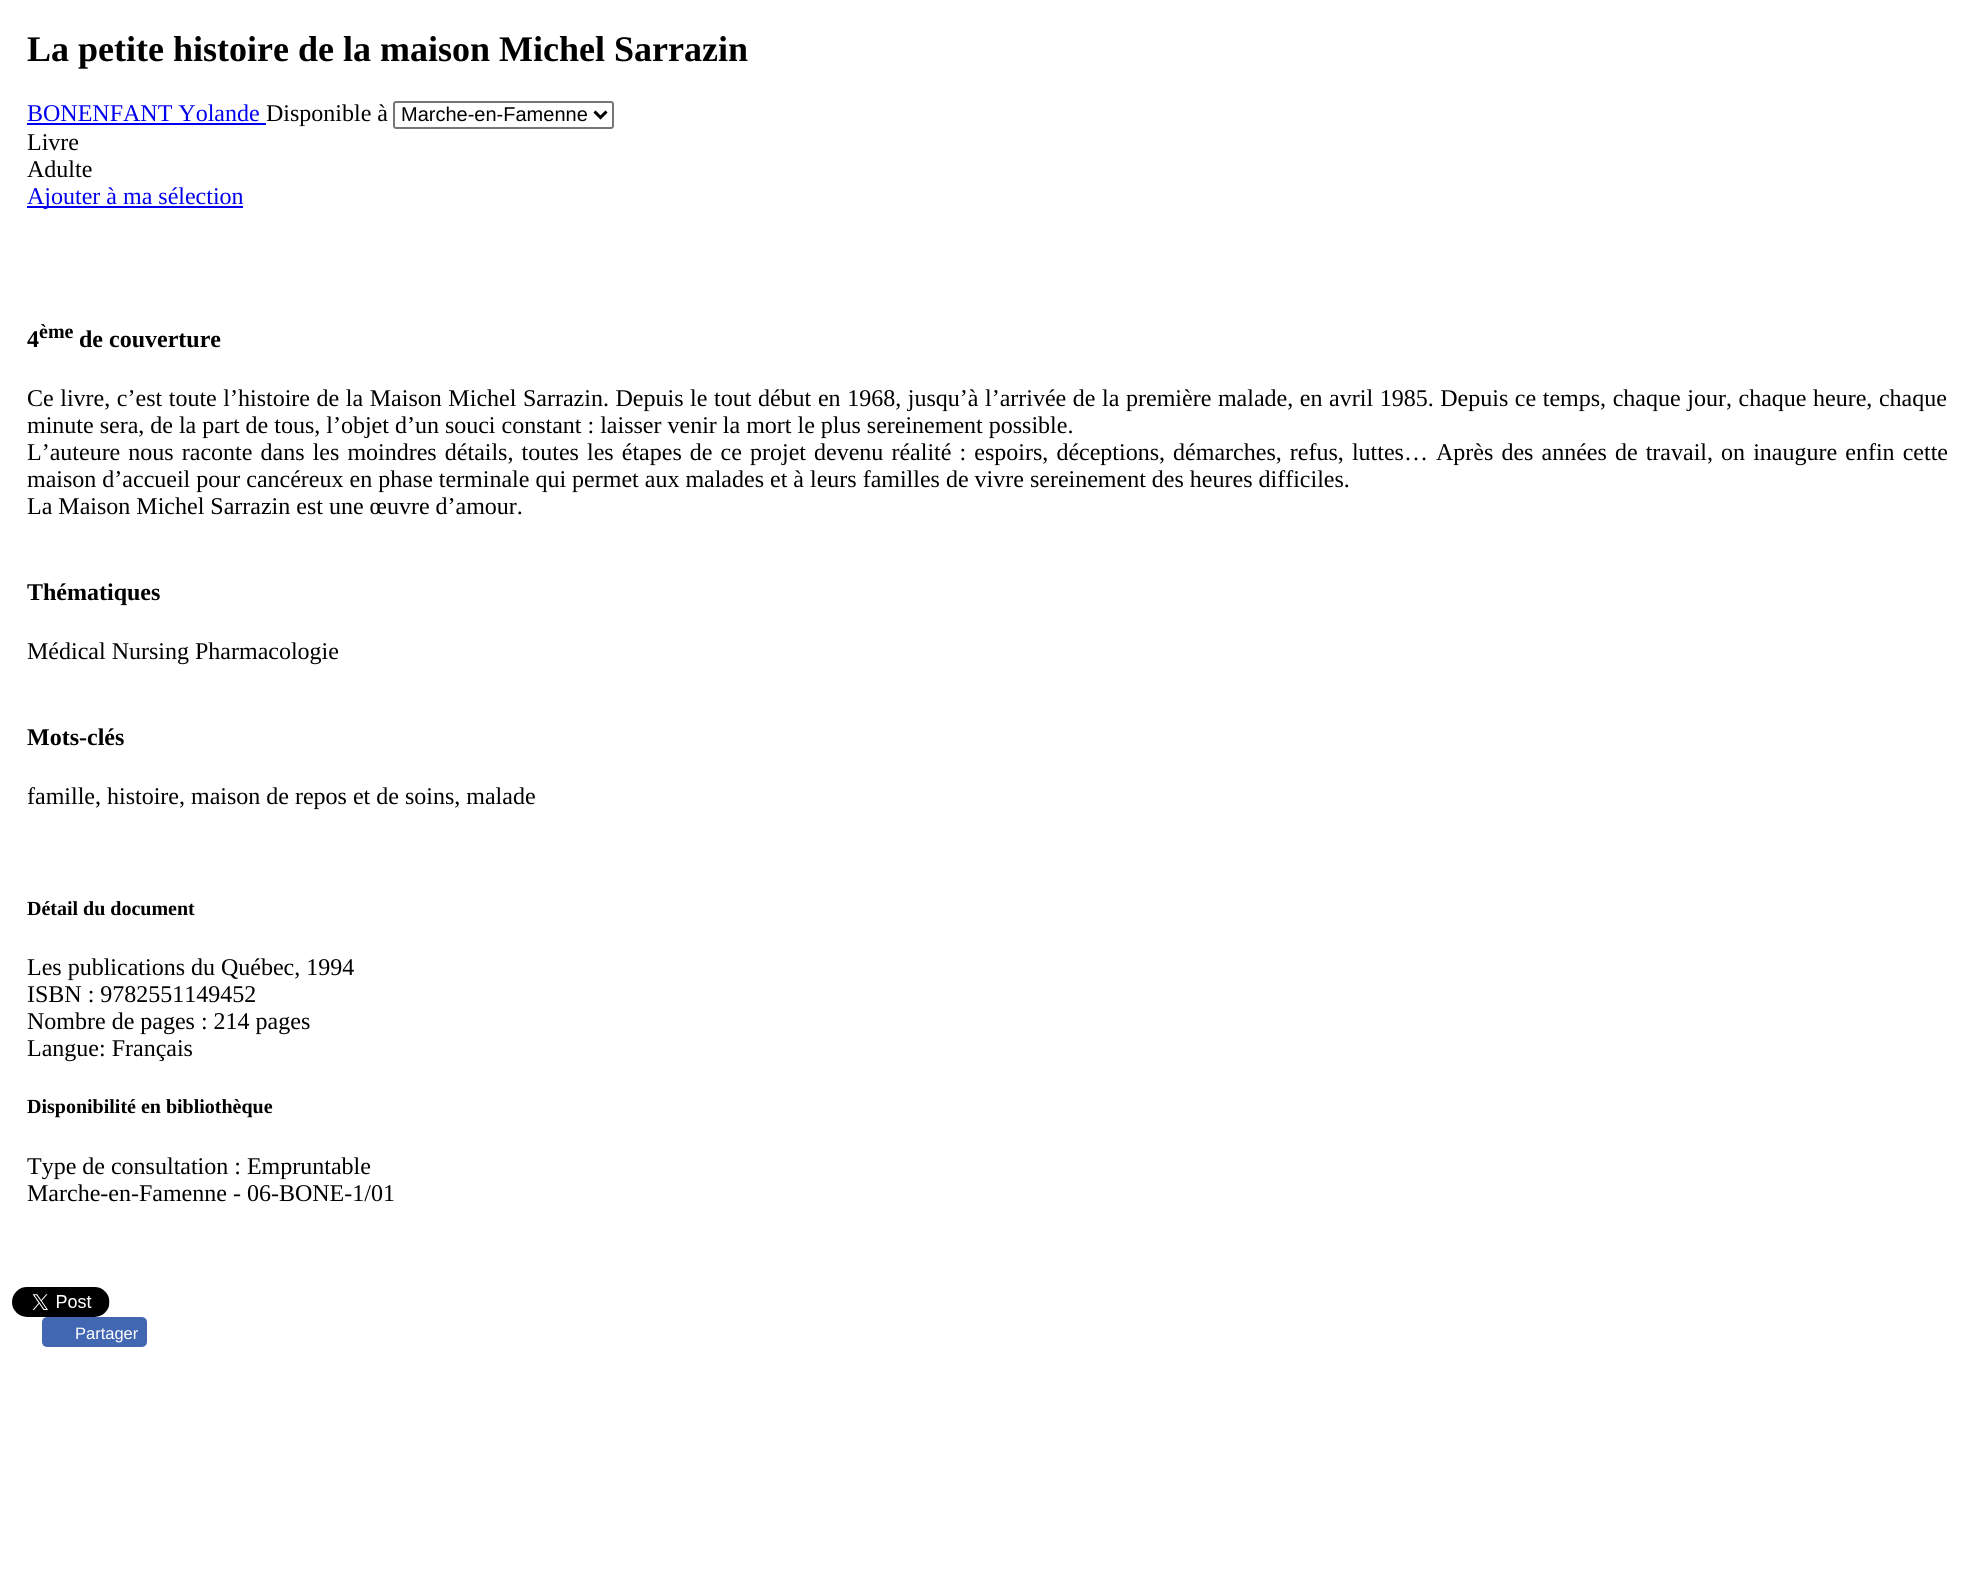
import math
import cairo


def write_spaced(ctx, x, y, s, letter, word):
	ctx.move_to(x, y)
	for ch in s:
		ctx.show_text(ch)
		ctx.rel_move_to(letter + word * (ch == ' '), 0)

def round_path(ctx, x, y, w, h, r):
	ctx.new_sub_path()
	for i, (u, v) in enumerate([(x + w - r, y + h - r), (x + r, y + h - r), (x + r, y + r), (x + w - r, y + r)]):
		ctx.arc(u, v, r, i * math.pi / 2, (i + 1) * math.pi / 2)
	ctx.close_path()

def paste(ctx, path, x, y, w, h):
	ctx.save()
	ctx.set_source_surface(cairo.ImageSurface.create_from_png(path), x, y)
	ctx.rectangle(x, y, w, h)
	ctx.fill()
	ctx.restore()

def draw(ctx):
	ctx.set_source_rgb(1, 1, 1)
	ctx.paint()
	ctx.select_font_face('Liberation Serif', cairo.FONT_SLANT_NORMAL, cairo.FONT_WEIGHT_BOLD)
	ctx.set_font_size(36)
	ctx.set_source_rgb(0, 0, 0)
	ctx.move_to(27, 61)
	ctx.show_text('La petite histoire de la maison Michel Sarrazin')
	ctx.select_font_face('Liberation Serif')
	ctx.set_font_size(24)
	ctx.set_source_rgb(0, 0, 0.933)
	ctx.move_to(27, 121)
	ctx.show_text('BONENFANT Yolande')
	ctx.rectangle(27, 123, 239, 2)
	ctx.fill()
	ctx.set_source_rgb(0, 0, 0)
	ctx.move_to(266, 121)
	ctx.show_text('Disponible à')
	round_path(ctx, 394, 102, 219, 26, 2)
	ctx.set_source_rgb(0.463, 0.463, 0.463)
	ctx.stroke()
	ctx.new_path()
	ctx.move_to(594.5, 111.5)
	ctx.line_to(600.5, 117.5)
	ctx.line_to(606.5, 111.5)
	ctx.set_source_rgb(0, 0, 0)
	ctx.set_line_width(3)
	ctx.stroke()
	ctx.select_font_face('Liberation Sans')
	ctx.set_font_size(20)
	ctx.move_to(401, 121)
	ctx.show_text('Marche-en-Famenne')
	ctx.select_font_face('Liberation Serif')
	ctx.set_font_size(24)
	ctx.move_to(27, 150)
	ctx.show_text('Livre')
	ctx.move_to(27, 177)
	ctx.show_text('Adulte')
	ctx.set_source_rgb(0, 0, 0.933)
	ctx.rectangle(27, 206, 216, 2)
	ctx.fill()
	ctx.move_to(27, 204)
	ctx.show_text('Ajouter à ma sélection')
	ctx.select_font_face('Liberation Serif', cairo.FONT_SLANT_NORMAL, cairo.FONT_WEIGHT_BOLD)
	ctx.set_source_rgb(0, 0, 0)
	ctx.move_to(27, 347)
	ctx.show_text('4')
	ctx.set_font_size(20)
	ctx.move_to(39, 338)
	ctx.show_text('ème')
	ctx.set_font_size(24)
	ctx.move_to(79, 347)
	ctx.show_text('de couverture')
	ctx.select_font_face('Liberation Serif')
	write_spaced(ctx, 27, 406, 'Ce livre, c’est toute l’histoire de la Maison Michel Sarrazin. Depuis le tout début en 1968, jusqu’à l’arrivée de la première malade, en avril 1985. Depuis ce temps, chaque jour, chaque heure, chaque', 0, 0.6)
	ctx.move_to(27, 433)
	ctx.show_text('minute sera, de la part de tous, l’objet d’un souci constant : laisser venir la mort le plus sereinement possible.')
	write_spaced(ctx, 27, 460, 'L’auteure nous raconte dans les moindres détails, toutes les étapes de ce projet devenu réalité : espoirs, déceptions, démarches, refus, luttes… Après des années de travail, on inaugure enfin cette', 0, 2.1)
	ctx.move_to(27, 487)
	ctx.show_text('maison d’accueil pour cancéreux en phase terminale qui permet aux malades et à leurs familles de vivre sereinement des heures difficiles.')
	ctx.move_to(27, 514)
	ctx.show_text('La Maison Michel Sarrazin est une œuvre d’amour.')
	ctx.select_font_face('Liberation Serif', cairo.FONT_SLANT_NORMAL, cairo.FONT_WEIGHT_BOLD)
	ctx.move_to(27, 600)
	ctx.show_text('Thématiques')
	ctx.select_font_face('Liberation Serif')
	ctx.move_to(27, 659)
	ctx.show_text('Médical Nursing Pharmacologie')
	ctx.select_font_face('Liberation Serif', cairo.FONT_SLANT_NORMAL, cairo.FONT_WEIGHT_BOLD)
	ctx.move_to(27, 745)
	ctx.show_text('Mots-clés')
	ctx.select_font_face('Liberation Serif')
	ctx.move_to(27, 804)
	ctx.show_text('famille, histoire, maison de repos et de soins, malade')
	ctx.select_font_face('Liberation Serif', cairo.FONT_SLANT_NORMAL, cairo.FONT_WEIGHT_BOLD)
	ctx.set_font_size(20)
	ctx.move_to(27, 915)
	ctx.show_text('Détail du document')
	ctx.select_font_face('Liberation Serif')
	ctx.set_font_size(24)
	for x, y, s in [
		(27, 975, 'Les publications du Québec, 1994'),
		(27, 1002, 'ISBN : 9782551149452'),
		(27, 1029, 'Nombre de pages : 214 pages'),
		(27, 1056, 'Langue: Français'),
	]:
		ctx.move_to(x, y)
		ctx.show_text(s)
	ctx.select_font_face('Liberation Serif', cairo.FONT_SLANT_NORMAL, cairo.FONT_WEIGHT_BOLD)
	ctx.set_font_size(20)
	ctx.move_to(27, 1113)
	ctx.show_text('Disponibilité en bibliothèque')
	ctx.select_font_face('Liberation Serif')
	ctx.set_font_size(24)
	ctx.move_to(27, 1174)
	ctx.show_text('Type de consultation : Empruntable')
	ctx.move_to(27, 1201)
	ctx.show_text('Marche-en-Famenne - 06-BONE-1/01')
	paste(ctx, 'media/1.png', 12, 1287, 98, 30)
	ctx.set_source_rgb(0.259, 0.404, 0.698)
	round_path(ctx, 43.5, 1318.5, 102, 27, 3.5)
	ctx.fill_preserve()
	ctx.stroke()
	ctx.select_font_face('Liberation Sans')
	ctx.set_font_size(16.5)
	ctx.set_source_rgb(1, 1, 1)
	ctx.move_to(75, 1339)
	ctx.show_text('Partager')


surface = cairo.ImageSurface(cairo.FORMAT_RGB24, 1974, 1594)
ctx = cairo.Context(surface)
options = cairo.FontOptions()
options.set_hint_metrics(cairo.HINT_METRICS_OFF)
options.set_hint_style(cairo.HINT_STYLE_NONE)
ctx.set_font_options(options)
ctx.set_miter_limit(4)
draw(ctx)
surface.write_to_png('image.png')
